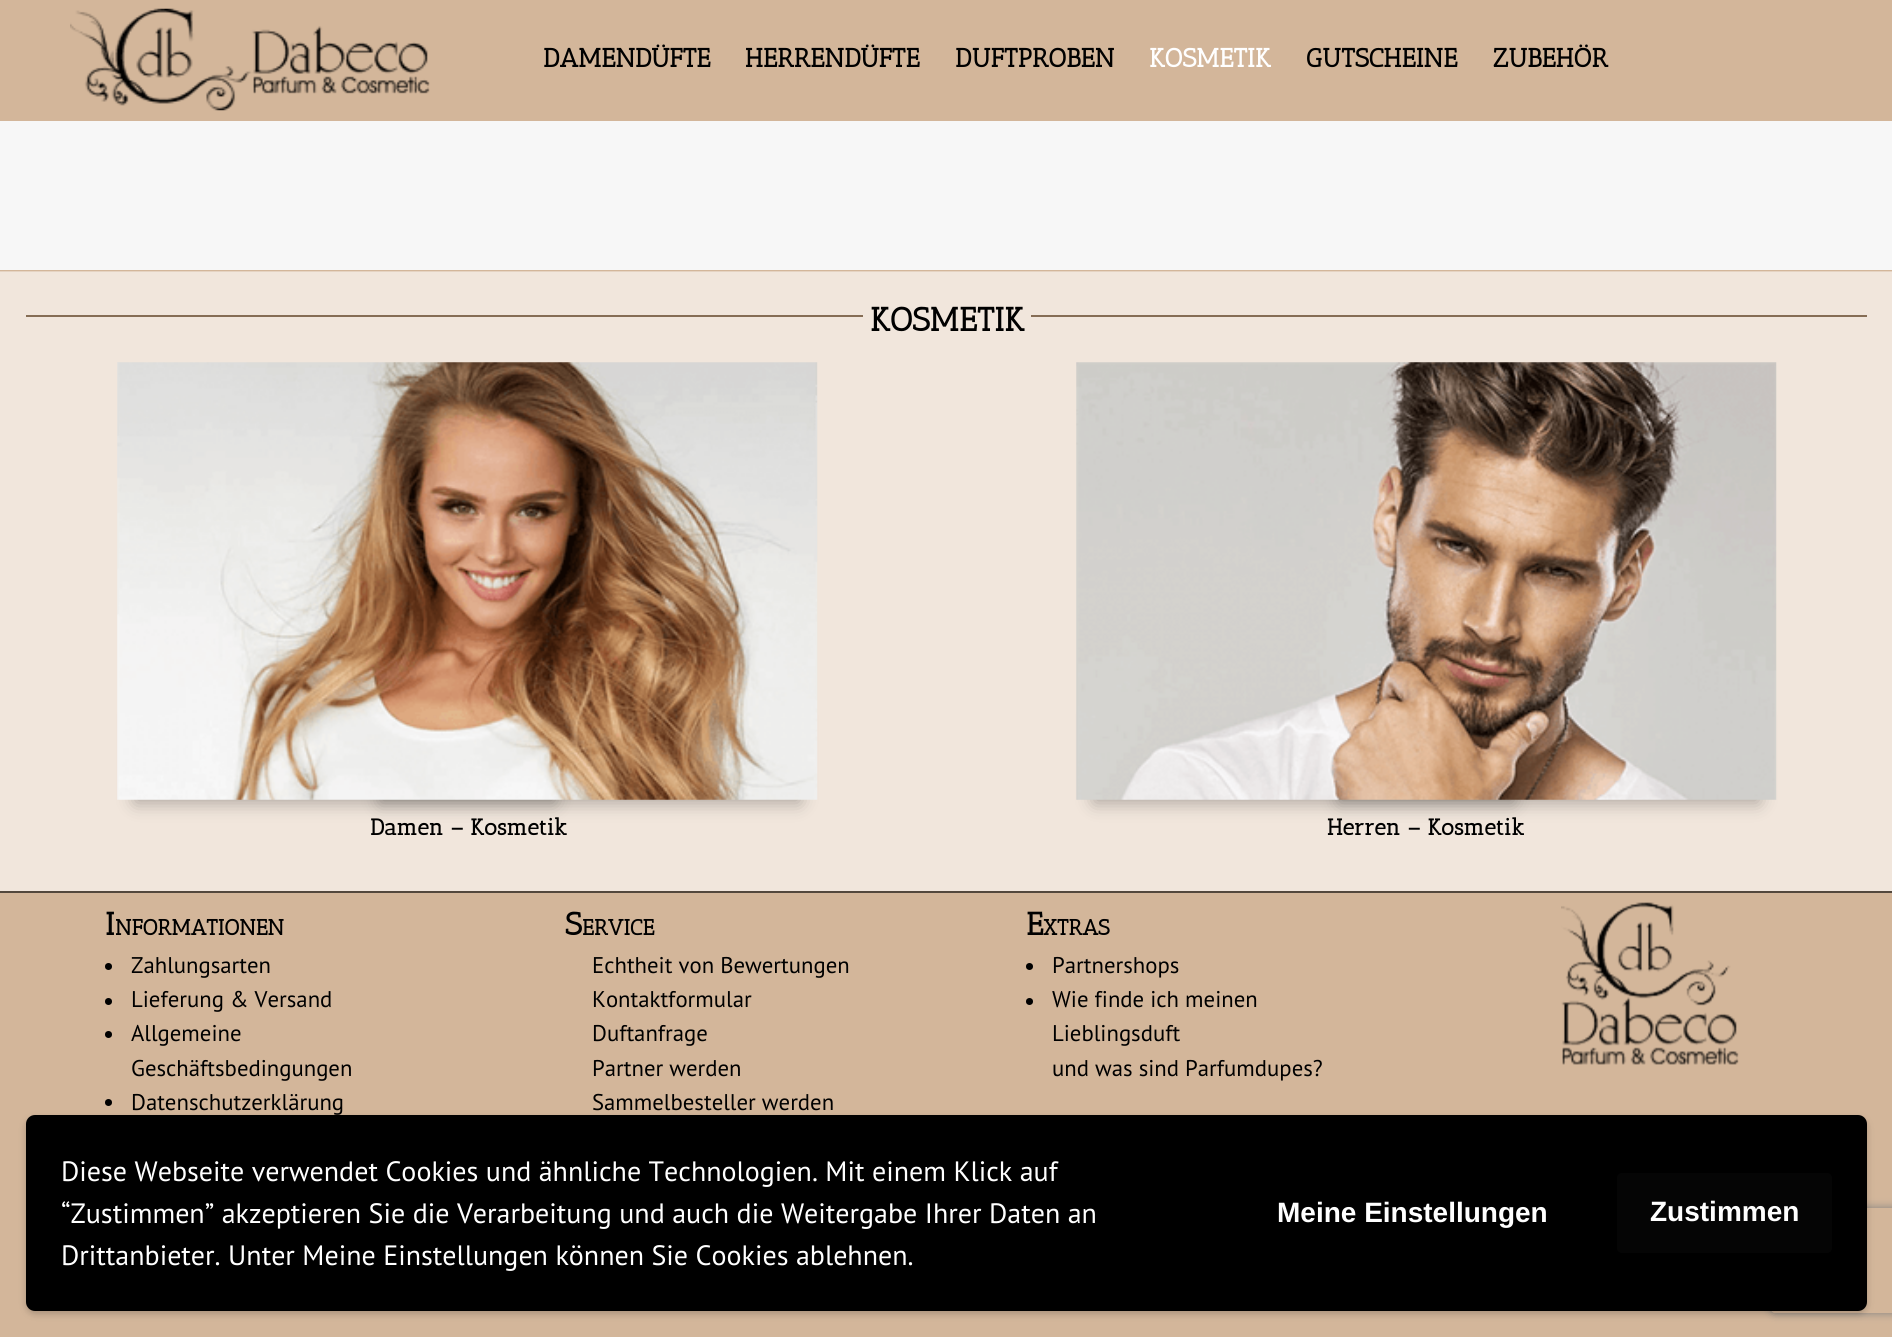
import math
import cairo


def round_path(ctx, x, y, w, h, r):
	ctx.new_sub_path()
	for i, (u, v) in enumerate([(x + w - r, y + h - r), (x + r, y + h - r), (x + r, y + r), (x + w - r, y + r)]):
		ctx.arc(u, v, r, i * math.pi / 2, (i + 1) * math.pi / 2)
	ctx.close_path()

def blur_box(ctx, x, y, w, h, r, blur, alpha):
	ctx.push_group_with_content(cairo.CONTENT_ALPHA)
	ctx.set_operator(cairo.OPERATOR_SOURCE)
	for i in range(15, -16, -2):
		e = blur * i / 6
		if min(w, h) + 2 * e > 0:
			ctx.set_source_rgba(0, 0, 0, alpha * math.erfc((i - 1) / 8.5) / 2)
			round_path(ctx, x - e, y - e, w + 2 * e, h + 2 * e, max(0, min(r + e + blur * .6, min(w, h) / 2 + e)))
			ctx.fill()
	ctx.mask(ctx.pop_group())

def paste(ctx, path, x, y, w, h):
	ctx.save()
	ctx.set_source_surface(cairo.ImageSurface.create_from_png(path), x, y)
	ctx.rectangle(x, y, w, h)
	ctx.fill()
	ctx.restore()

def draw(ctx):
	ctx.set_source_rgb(0.827, 0.714, 0.604)
	ctx.paint()
	ctx.set_source_rgb(0.945, 0.902, 0.863)
	ctx.rectangle(0, 272, 1892, 619)
	ctx.fill()
	paste(ctx, 'media/1.png', 70, 8, 360, 103)
	ctx.select_font_face('Antic Slab', cairo.FONT_SLANT_NORMAL, cairo.FONT_WEIGHT_BOLD)
	ctx.set_font_size(26.25)
	ctx.set_source_rgb(0, 0, 0)
	for x, y, s in [
		(543, 67, 'DAMENDÜFTE'),
		(745, 67, 'HERRENDÜFTE'),
		(955, 67, 'DUFTPROBEN'),
	]:
		ctx.move_to(x, y)
		ctx.show_text(s)
	ctx.set_source_rgb(1, 1, 1)
	ctx.move_to(1149, 67)
	ctx.show_text('KOSMETIK')
	ctx.set_source_rgb(0, 0, 0)
	ctx.move_to(1306, 67)
	ctx.show_text('GUTSCHEINE')
	ctx.move_to(1493, 67)
	ctx.show_text('ZUBEHÖR')
	ctx.set_source_rgb(0.965, 0.965, 0.965)
	ctx.rectangle(0, 121, 1892, 149)
	ctx.fill()
	ctx.set_source_rgb(0.898, 0.827, 0.761)
	ctx.rectangle(0, 271, 1892, 1)
	ctx.fill()
	ctx.set_source_rgb(0.525, 0.427, 0.333)
	ctx.rectangle(26, 315, 837, 2)
	ctx.fill()
	ctx.set_font_size(33.25)
	ctx.set_source_rgb(0, 0, 0)
	ctx.move_to(870, 331)
	ctx.show_text('KOSMETIK')
	ctx.set_source_rgb(0.525, 0.427, 0.333)
	ctx.rectangle(1031, 315, 836, 2)
	ctx.fill()
	ctx.set_source_rgb(0, 0, 0)
	blur_box(ctx, 135, 716, 420, 87, 0, 9, 0.28)
	blur_box(ctx, 380, 716, 420, 87, 0, 9, 0.28)
	paste(ctx, 'media/2.png', 117, 362, 701, 438)
	ctx.set_font_size(22.75)
	ctx.set_source_rgb(0, 0, 0)
	ctx.move_to(370, 835)
	ctx.show_text('Damen – Kosmetik')
	ctx.set_source_rgb(0, 0, 0)
	blur_box(ctx, 1094, 716, 420, 87, 0, 9, 0.28)
	blur_box(ctx, 1339, 716, 420, 87, 0, 9, 0.28)
	paste(ctx, 'media/3.png', 1076, 362, 701, 438)
	ctx.set_source_rgb(0, 0, 0)
	ctx.move_to(1327, 835)
	ctx.show_text('Herren – Kosmetik')
	ctx.set_source_rgb(0.325, 0.282, 0.239)
	ctx.rectangle(0, 891, 1892, 2)
	ctx.fill()
	ctx.set_font_size(32)
	ctx.set_source_rgb(0, 0, 0)
	ctx.move_to(105, 935)
	ctx.show_text('I')
	ctx.set_font_size(22)
	ctx.move_to(115, 935)
	ctx.show_text('NFORMATIONEN')
	ctx.new_path()
	ctx.arc(108.5, 966.5, 3.5, 0, 2 * math.pi)
	ctx.fill()
	ctx.select_font_face('PT Sans')
	ctx.set_font_size(22.75)
	ctx.move_to(131, 973)
	ctx.show_text('Zahlungsarten')
	ctx.new_path()
	ctx.arc(108.5, 1001.5, 3.5, 0, 2 * math.pi)
	ctx.fill()
	ctx.move_to(131, 1007)
	ctx.show_text('Lieferung & Versand')
	ctx.new_path()
	ctx.arc(108.5, 1034.5, 3.5, 0, 2 * math.pi)
	ctx.fill()
	ctx.move_to(131, 1041)
	ctx.show_text('Allgemeine')
	ctx.move_to(131, 1076)
	ctx.show_text('Geschäftsbedingungen')
	ctx.new_path()
	ctx.arc(108.5, 1102.5, 3.5, 0, 2 * math.pi)
	ctx.fill()
	ctx.move_to(131, 1110)
	ctx.show_text('Datenschutzerklärung')
	ctx.select_font_face('Antic Slab', cairo.FONT_SLANT_NORMAL, cairo.FONT_WEIGHT_BOLD)
	ctx.set_font_size(32)
	ctx.move_to(565, 935)
	ctx.show_text('S')
	ctx.set_font_size(22)
	ctx.move_to(582, 935)
	ctx.show_text('ERVICE')
	ctx.select_font_face('PT Sans')
	ctx.set_font_size(22.75)
	for x, y, s in [
		(592, 973, 'Echtheit von Bewertungen'),
		(592, 1007, 'Kontaktformular'),
		(592, 1041, 'Duftanfrage'),
		(592, 1076, 'Partner werden'),
		(592, 1110, 'Sammelbesteller werden'),
	]:
		ctx.move_to(x, y)
		ctx.show_text(s)
	ctx.select_font_face('Antic Slab', cairo.FONT_SLANT_NORMAL, cairo.FONT_WEIGHT_BOLD)
	ctx.set_font_size(32)
	ctx.move_to(1026, 935)
	ctx.show_text('E')
	ctx.set_font_size(22)
	ctx.move_to(1043, 935)
	ctx.show_text('XTRAS')
	ctx.new_path()
	ctx.arc(1029.5, 966.5, 3.5, 0, 2 * math.pi)
	ctx.fill()
	ctx.select_font_face('PT Sans')
	ctx.set_font_size(22.75)
	ctx.move_to(1052, 973)
	ctx.show_text('Partnershops')
	ctx.new_path()
	ctx.arc(1029.5, 1001.5, 3.5, 0, 2 * math.pi)
	ctx.fill()
	for x, y, s in [
		(1052, 1007, 'Wie finde ich meinen'),
		(1052, 1041, 'Lieblingsduft'),
		(1052, 1076, 'und was sind Parfumdupes?'),
	]:
		ctx.move_to(x, y)
		ctx.show_text(s)
	paste(ctx, 'media/4.png', 1561, 902, 178, 163)
	ctx.save()
	ctx.set_fill_rule(cairo.FILL_RULE_EVEN_ODD)
	ctx.new_path()
	ctx.move_to(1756, 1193)
	ctx.line_to(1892, 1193)
	ctx.line_to(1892, 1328)
	ctx.line_to(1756, 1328)
	ctx.close_path()
	ctx.move_to(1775, 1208)
	ctx.line_to(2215, 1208)
	ctx.curve_to(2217, 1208, 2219, 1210, 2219, 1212)
	ctx.line_to(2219, 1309)
	ctx.curve_to(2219, 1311, 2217, 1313, 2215, 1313)
	ctx.line_to(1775, 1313)
	ctx.curve_to(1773, 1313, 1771, 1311, 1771, 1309)
	ctx.line_to(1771, 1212)
	ctx.curve_to(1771, 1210, 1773, 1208, 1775, 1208)
	ctx.close_path()
	ctx.clip()
	ctx.set_source_rgb(0.502, 0.502, 0.502)
	blur_box(ctx, 1771, 1208, 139, 105, 4, 4.5, 1)
	ctx.restore()
	ctx.set_source_rgb(0.827, 0.714, 0.604)
	ctx.rectangle(1763, 1257, 8, 50)
	ctx.fill()
	ctx.set_source_rgb(0, 0, 0)
	blur_box(ctx, 26, 1118, 1841, 196, 9, 3.5, 0.2)
	ctx.set_source_rgb(0, 0, 0)
	round_path(ctx, 26, 1115, 1841, 196, 9)
	ctx.fill()
	ctx.set_font_size(28)
	ctx.set_source_rgb(1, 1, 1)
	for x, y, s in [
		(61, 1181, 'Diese Webseite verwendet Cookies und ähnliche Technologien. Mit einem Klick auf'),
		(61, 1223, '“Zustimmen” akzeptieren Sie die Verarbeitung und auch die Weitergabe Ihrer Daten an'),
		(61, 1265, 'Drittanbieter. Unter Meine Einstellungen können Sie Cookies ablehnen.'),
	]:
		ctx.move_to(x, y)
		ctx.show_text(s)
	ctx.select_font_face('Liberation Sans', cairo.FONT_SLANT_NORMAL, cairo.FONT_WEIGHT_BOLD)
	ctx.move_to(1277, 1222)
	ctx.show_text('Meine Einstellungen')
	ctx.set_source_rgb(0.02, 0.02, 0.02)
	round_path(ctx, 1617, 1173, 215, 80, 5)
	ctx.fill()
	ctx.set_source_rgb(1, 1, 1)
	ctx.move_to(1650, 1221)
	ctx.show_text('Zustimmen')


surface = cairo.ImageSurface(cairo.FORMAT_RGB24, 1892, 1337)
ctx = cairo.Context(surface)
options = cairo.FontOptions()
options.set_hint_metrics(cairo.HINT_METRICS_OFF)
options.set_hint_style(cairo.HINT_STYLE_NONE)
ctx.set_font_options(options)
ctx.set_miter_limit(4)
draw(ctx)
surface.write_to_png('image.png')
